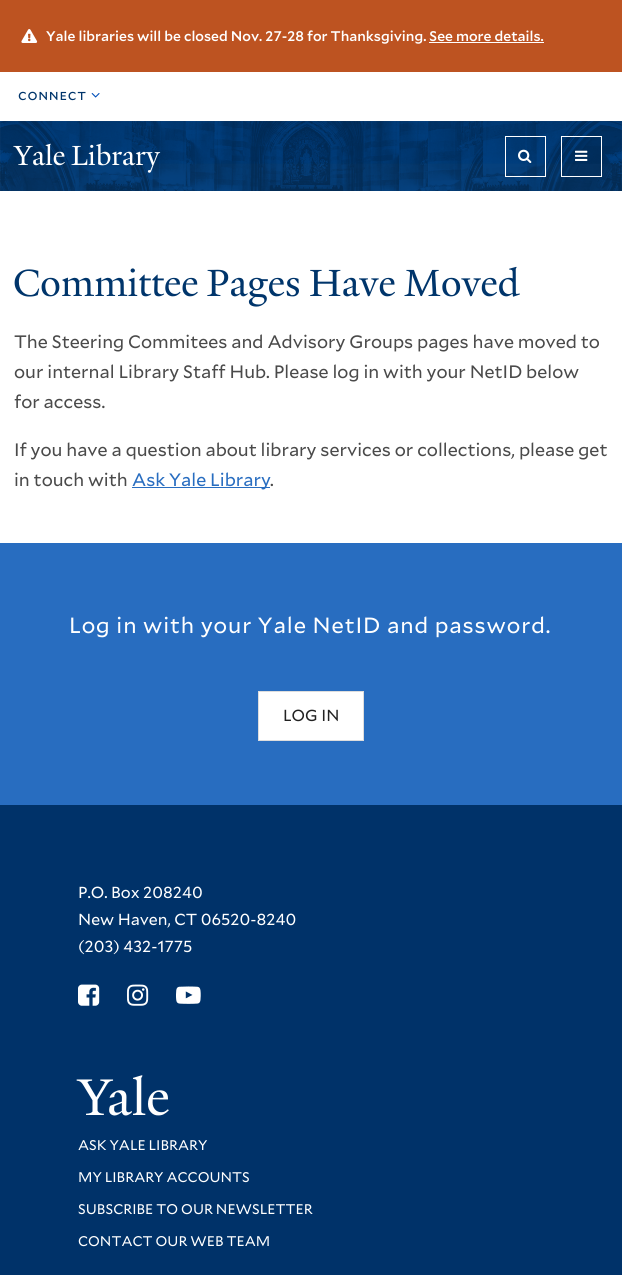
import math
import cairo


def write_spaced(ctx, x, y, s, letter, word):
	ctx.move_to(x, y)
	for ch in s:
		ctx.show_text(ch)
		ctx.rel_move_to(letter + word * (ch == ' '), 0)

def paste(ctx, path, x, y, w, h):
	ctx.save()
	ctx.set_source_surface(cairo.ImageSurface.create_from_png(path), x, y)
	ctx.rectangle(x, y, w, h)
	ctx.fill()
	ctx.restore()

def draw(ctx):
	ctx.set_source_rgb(1, 1, 1)
	ctx.paint()
	ctx.set_source_rgb(0.741, 0.325, 0.129)
	ctx.rectangle(0, 0, 622, 72)
	ctx.fill()
	paste(ctx, 'media/1.png', 21, 29, 17, 14)
	ctx.select_font_face('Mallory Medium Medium')
	ctx.set_font_size(14)
	ctx.set_source_rgb(1, 1, 1)
	ctx.move_to(46, 41)
	ctx.show_text('Yale libraries will be closed Nov. 27-28 for Thanksgiving. See more details.')
	ctx.rectangle(429, 42, 115, 1)
	ctx.fill()
	ctx.select_font_face('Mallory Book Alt')
	ctx.set_font_size(14.5)
	ctx.set_source_rgb(0, 0.208, 0.42)
	write_spaced(ctx, 18, 100, 'connect', 0.75, 0)
	paste(ctx, 'media/2.png', 91, 93, 9, 5)
	paste(ctx, 'media/3.png', 0, 121, 622, 70)
	ctx.select_font_face('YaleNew')
	ctx.set_font_size(30)
	ctx.set_source_rgb(1, 1, 1)
	write_spaced(ctx, 14, 165, 'Yale Library', 0, -1)
	ctx.rectangle(505.5, 136.5, 40, 40)
	ctx.set_line_width(1)
	ctx.stroke()
	paste(ctx, 'media/4.png', 518, 149, 14, 14)
	ctx.rectangle(561.5, 136.5, 40, 40)
	ctx.stroke()
	paste(ctx, 'media/5.png', 575, 150, 13, 11)
	ctx.set_font_size(41.1)
	ctx.set_source_rgb(0, 0.208, 0.42)
	write_spaced(ctx, 13, 296, 'Committee Pages Have Moved', 0, -1)
	ctx.select_font_face('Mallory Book')
	ctx.set_font_size(18)
	ctx.set_source_rgb(0.29, 0.29, 0.29)
	for x, y, s in [
		(14, 348, 'The Steering Commitees and Advisory Groups pages have moved to'),
		(14, 378, 'our internal Library Staff Hub. Please log in with your NetID below'),
		(14, 408, 'for access.'),
		(14, 456, 'If you have a question about library services or collections, please get'),
		(14, 486, 'in touch with'),
	]:
		ctx.move_to(x, y)
		ctx.show_text(s)
	ctx.set_source_rgb(0.157, 0.427, 0.753)
	ctx.rectangle(132, 487, 138, 1)
	ctx.fill()
	ctx.move_to(132, 486)
	ctx.show_text('Ask Yale Library')
	ctx.set_source_rgb(0.29, 0.29, 0.29)
	ctx.move_to(270, 486)
	ctx.show_text('.')
	ctx.set_source_rgb(0.157, 0.427, 0.753)
	ctx.rectangle(0, 543, 622, 262)
	ctx.fill()
	ctx.set_font_size(22)
	ctx.set_source_rgb(1, 1, 1)
	write_spaced(ctx, 69, 633, 'Log in with your Yale NetID and password.', 0.9, 0)
	ctx.rectangle(258.5, 691.5, 105, 49)
	ctx.fill_preserve()
	ctx.set_source_rgb(0.867, 0.867, 0.867)
	ctx.stroke()
	ctx.set_font_size(16)
	ctx.set_source_rgb(0.133, 0.133, 0.133)
	ctx.move_to(283, 721)
	ctx.show_text('LOG IN')
	ctx.set_source_rgb(0, 0.196, 0.412)
	ctx.rectangle(0, 805, 622, 470)
	ctx.fill()
	ctx.set_source_rgb(1, 1, 1)
	for x, y, s in [
		(78, 898, 'P.O. Box 208240'),
		(78, 925, 'New Haven, CT 06520-8240'),
		(78, 952, '(203) 432-1775'),
	]:
		ctx.move_to(x, y)
		ctx.show_text(s)
	paste(ctx, 'media/6.png', 78, 984, 22, 22)
	paste(ctx, 'media/7.png', 127, 984, 22, 22)
	paste(ctx, 'media/8.png', 176, 986, 25, 18)
	paste(ctx, 'media/9.png', 76, 1075, 93, 41)
	ctx.set_font_size(14)
	for x, y, s in [
		(78, 1150, 'ASK YALE LIBRARY'),
		(78, 1182, 'MY LIBRARY ACCOUNTS'),
		(78, 1214, 'SUBSCRIBE TO OUR NEWSLETTER'),
		(78, 1246, 'CONTACT OUR WEB TEAM'),
	]:
		ctx.move_to(x, y)
		ctx.show_text(s)


surface = cairo.ImageSurface(cairo.FORMAT_RGB24, 622, 1275)
ctx = cairo.Context(surface)
options = cairo.FontOptions()
options.set_hint_metrics(cairo.HINT_METRICS_OFF)
options.set_hint_style(cairo.HINT_STYLE_NONE)
ctx.set_font_options(options)
ctx.set_miter_limit(4)
draw(ctx)
surface.write_to_png('image.png')
